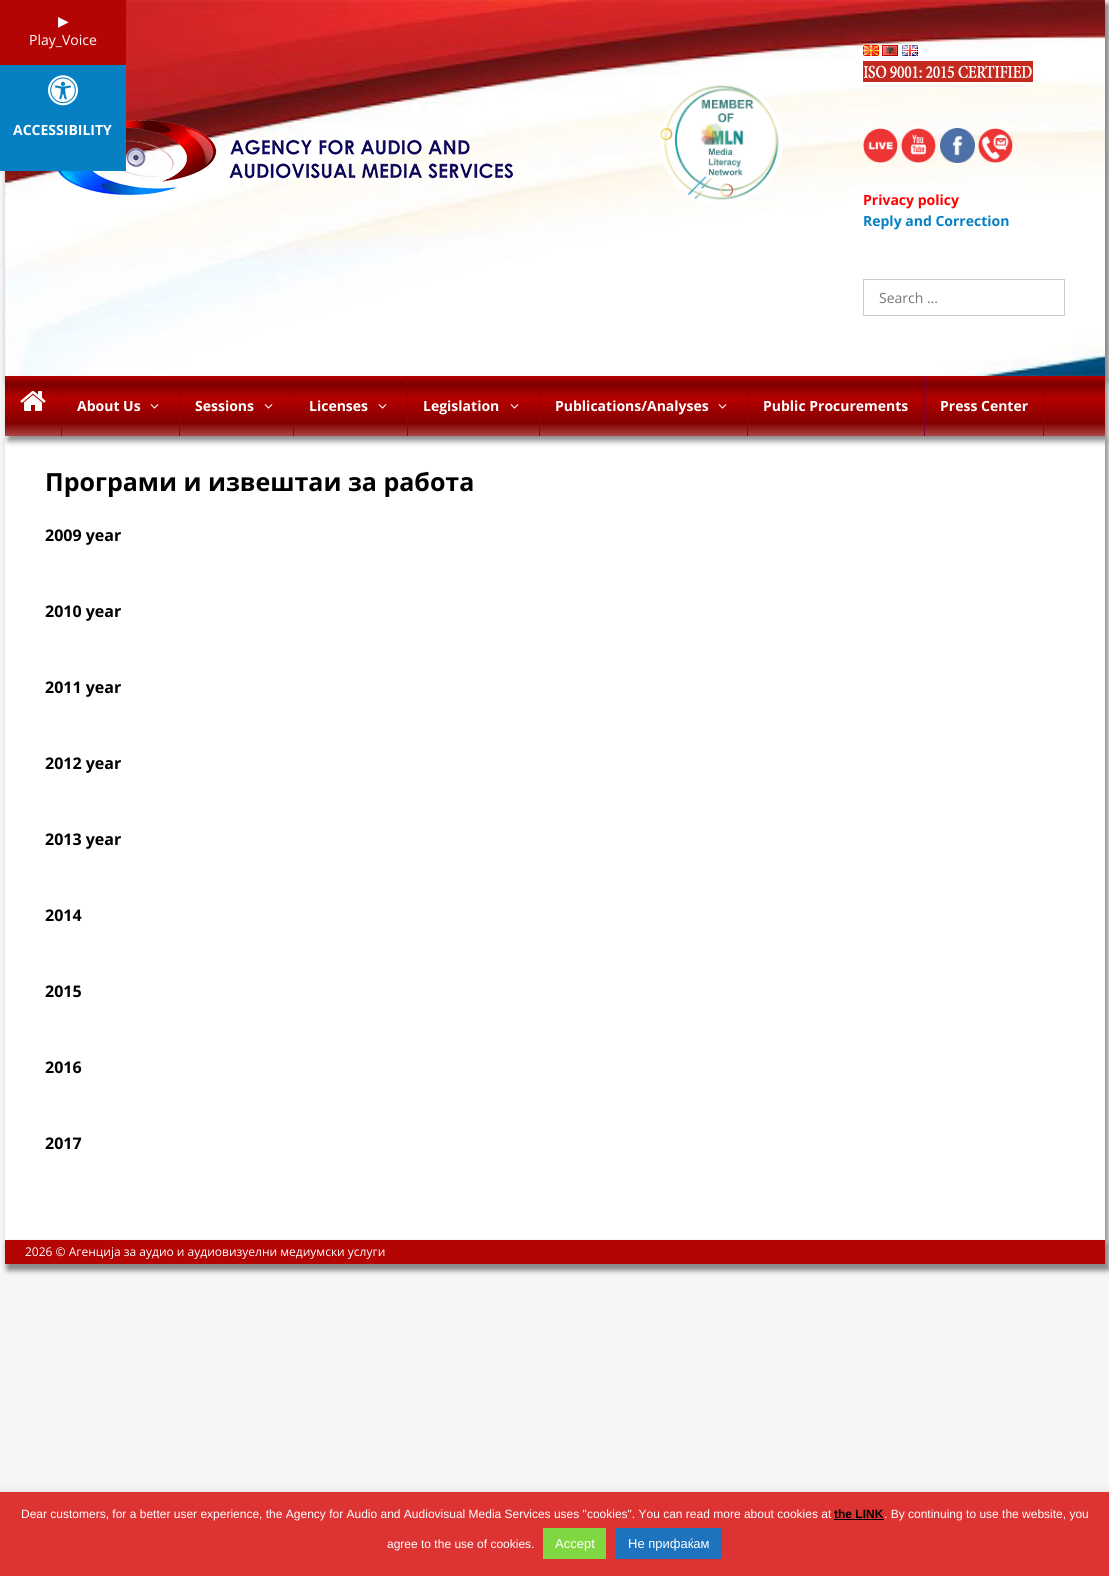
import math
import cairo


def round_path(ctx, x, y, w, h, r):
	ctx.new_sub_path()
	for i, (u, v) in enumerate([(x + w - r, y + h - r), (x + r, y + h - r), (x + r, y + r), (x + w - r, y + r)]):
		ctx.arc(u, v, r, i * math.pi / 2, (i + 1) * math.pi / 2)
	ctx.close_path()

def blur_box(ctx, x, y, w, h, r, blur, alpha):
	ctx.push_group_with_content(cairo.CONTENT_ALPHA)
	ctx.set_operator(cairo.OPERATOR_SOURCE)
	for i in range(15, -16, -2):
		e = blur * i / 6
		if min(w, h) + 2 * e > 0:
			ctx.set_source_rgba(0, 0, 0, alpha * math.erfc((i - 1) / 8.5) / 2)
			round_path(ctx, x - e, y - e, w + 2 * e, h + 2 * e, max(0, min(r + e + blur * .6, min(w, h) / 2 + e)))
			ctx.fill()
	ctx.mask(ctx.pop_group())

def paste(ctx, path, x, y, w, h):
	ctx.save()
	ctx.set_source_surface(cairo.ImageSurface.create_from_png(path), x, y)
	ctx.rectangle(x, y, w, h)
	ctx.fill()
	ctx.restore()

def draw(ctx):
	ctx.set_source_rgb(0.961, 0.961, 0.961)
	ctx.paint()
	ctx.set_source_rgb(0.545, 0.541, 0.541)
	blur_box(ctx, 8, 5, 1100, 376, 0, 3, 1)
	paste(ctx, 'media/2.png', 5, 0, 1100, 376)
	ctx.save()
	ctx.set_fill_rule(cairo.FILL_RULE_EVEN_ODD)
	ctx.new_path()
	ctx.move_to(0, 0)
	ctx.line_to(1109, 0)
	ctx.line_to(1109, 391)
	ctx.line_to(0, 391)
	ctx.close_path()
	ctx.move_to(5, 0)
	ctx.line_to(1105, 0)
	ctx.line_to(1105, 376)
	ctx.line_to(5, 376)
	ctx.close_path()
	ctx.clip()
	blur_box(ctx, 8, 5, 1100, 376, 0, 3, 1)
	ctx.restore()
	ctx.set_source_rgb(0.706, 0.016, 0.016)
	ctx.rectangle(0, 0, 126, 65)
	ctx.fill()
	ctx.select_font_face('DejaVu Sans')
	ctx.set_font_size(14)
	ctx.set_source_rgb(1, 1, 1)
	ctx.move_to(58, 26)
	ctx.show_text('▶')
	ctx.select_font_face('Open Sans')
	ctx.move_to(29, 45)
	ctx.show_text('Play_Voice')
	paste(ctx, 'media/3.png', 58, 120, 455, 76)
	ctx.set_source_rgb(0.027, 0.502, 0.765)
	ctx.rectangle(0, 65, 126, 106)
	ctx.fill()
	paste(ctx, 'media/1.png', 48, 75, 30, 31)
	ctx.select_font_face('Open Sans', cairo.FONT_SLANT_NORMAL, cairo.FONT_WEIGHT_BOLD)
	ctx.set_source_rgb(1, 1, 1)
	ctx.move_to(13, 135)
	ctx.show_text('ACCESSIBILITY')
	paste(ctx, 'media/4.png', 863, 45, 16, 11)
	paste(ctx, 'media/5.png', 882, 45, 16, 11)
	paste(ctx, 'media/6.png', 902, 45, 16, 11)
	paste(ctx, 'media/7.png', 863, 61, 170, 21)
	paste(ctx, 'media/8.png', 657, 85, 126, 120)
	paste(ctx, 'media/9.png', 863, 128, 35, 35)
	paste(ctx, 'media/10.png', 901, 128, 35, 35)
	paste(ctx, 'media/11.png', 940, 128, 35, 35)
	paste(ctx, 'media/12.png', 978, 128, 35, 35)
	ctx.set_source_rgb(1, 0, 0)
	ctx.move_to(863, 205)
	ctx.show_text('Privacy policy')
	ctx.set_source_rgb(0.027, 0.502, 0.765)
	ctx.move_to(863, 226)
	ctx.show_text('Reply and Correction')
	ctx.rectangle(863.5, 279.5, 201, 36)
	ctx.set_source_rgb(0.8, 0.8, 0.8)
	ctx.set_line_width(1)
	ctx.stroke()
	ctx.select_font_face('Open Sans')
	ctx.set_source_rgb(0.459, 0.459, 0.459)
	ctx.move_to(879, 303)
	ctx.show_text('Search …')
	ctx.set_source_rgb(0.545, 0.541, 0.541)
	blur_box(ctx, 8, 441, 1100, 804, 0, 3, 1)
	ctx.set_source_rgb(1, 1, 1)
	ctx.rectangle(5, 436, 1100, 804)
	ctx.fill()
	ctx.set_source_rgb(0.545, 0.541, 0.541)
	blur_box(ctx, 8, 381, 1100, 60, 0, 3, 1)
	paste(ctx, 'media/13.png', 5, 376, 1100, 60)
	ctx.set_source_rgb(0.506, 0.008, 0.22)
	ctx.rectangle(61, 376, 1, 60)
	ctx.fill()
	paste(ctx, 'media/14.png', 20, 391, 26, 20)
	ctx.rectangle(179, 376, 1, 60)
	ctx.fill()
	ctx.select_font_face('Open Sans', cairo.FONT_SLANT_NORMAL, cairo.FONT_WEIGHT_BOLD)
	ctx.set_source_rgb(1, 1, 1)
	ctx.move_to(77, 411)
	ctx.show_text('About Us')
	paste(ctx, 'media/15.png', 150, 404, 9, 5)
	ctx.set_source_rgb(0.506, 0.008, 0.22)
	ctx.rectangle(293, 376, 1, 60)
	ctx.fill()
	ctx.set_source_rgb(1, 1, 1)
	ctx.move_to(195, 411)
	ctx.show_text('Sessions')
	paste(ctx, 'media/15.png', 264, 404, 9, 5)
	ctx.set_source_rgb(0.506, 0.008, 0.22)
	ctx.rectangle(407, 376, 1, 60)
	ctx.fill()
	ctx.set_source_rgb(1, 1, 1)
	ctx.move_to(309, 411)
	ctx.show_text('Licenses')
	paste(ctx, 'media/15.png', 378, 404, 9, 5)
	ctx.set_source_rgb(0.506, 0.008, 0.22)
	ctx.rectangle(539, 376, 1, 60)
	ctx.fill()
	ctx.set_source_rgb(1, 1, 1)
	ctx.move_to(423, 411)
	ctx.show_text('Legislation')
	paste(ctx, 'media/15.png', 510, 404, 9, 5)
	ctx.set_source_rgb(0.506, 0.008, 0.22)
	ctx.rectangle(747, 376, 1, 60)
	ctx.fill()
	ctx.set_source_rgb(1, 1, 1)
	ctx.move_to(555, 411)
	ctx.show_text('Publications/Analyses')
	paste(ctx, 'media/15.png', 718, 404, 9, 5)
	ctx.set_source_rgb(0.506, 0.008, 0.22)
	ctx.rectangle(924, 376, 1, 60)
	ctx.fill()
	ctx.set_source_rgb(1, 1, 1)
	ctx.move_to(763, 411)
	ctx.show_text('Public Procurements')
	ctx.set_source_rgb(0.506, 0.008, 0.22)
	ctx.rectangle(1043, 376, 1, 60)
	ctx.fill()
	ctx.set_source_rgb(1, 1, 1)
	ctx.move_to(940, 411)
	ctx.show_text('Press Center')
	ctx.set_font_size(25)
	ctx.set_source_rgb(0, 0, 0)
	ctx.move_to(45, 491)
	ctx.show_text('Програми и извештаи за работа')
	ctx.set_font_size(16)
	for x, y, s in [
		(45, 541, '2009 year'),
		(45, 617, '2010 year'),
		(45, 693, '2011 year'),
		(45, 769, '2012 year'),
		(45, 845, '2013 year'),
		(45, 921, '2014'),
		(45, 997, '2015'),
		(45, 1073, '2016'),
		(45, 1149, '2017'),
	]:
		ctx.move_to(x, y)
		ctx.show_text(s)
	ctx.set_source_rgb(0.545, 0.541, 0.541)
	blur_box(ctx, 8, 1245, 1100, 24, 0, 3, 1)
	blur_box(ctx, 8, 1245, 1100, 24, 0, 3, 1)
	ctx.set_source_rgb(0.706, 0.016, 0.016)
	ctx.rectangle(5, 1240, 1100, 24)
	ctx.fill()
	ctx.select_font_face('Open Sans')
	ctx.set_font_size(12)
	ctx.set_source_rgb(1, 1, 1)
	ctx.move_to(25, 1256)
	ctx.show_text('2026 © Агенција за аудио и аудиовизуелни медиумски услуги')
	ctx.set_source_rgb(0.675, 0.671, 0.671)
	blur_box(ctx, 0, 1491, 1109, 84, 0, 5, 0.3)
	ctx.set_source_rgb(0.867, 0.2, 0.2)
	ctx.rectangle(0, 1492, 1109, 84)
	ctx.fill()
	ctx.select_font_face('Liberation Sans')
	ctx.set_source_rgb(1, 1, 1)
	ctx.move_to(21, 1518)
	ctx.show_text('Dear customers, for a better user experience, the Agency for Audio and Audiovisual Media Services uses "cookies". You can read more about cookies at')
	ctx.select_font_face('Liberation Sans', cairo.FONT_SLANT_NORMAL, cairo.FONT_WEIGHT_BOLD)
	ctx.set_source_rgb(0, 0, 0)
	ctx.move_to(834, 1518)
	ctx.show_text('the LINK')
	ctx.rectangle(834, 1519, 50, 1)
	ctx.fill()
	ctx.select_font_face('Liberation Sans')
	ctx.set_source_rgb(1, 1, 1)
	ctx.move_to(884, 1518)
	ctx.show_text('. By continuing to use the website, you')
	ctx.move_to(387, 1548)
	ctx.show_text('agree to the use of cookies.')
	ctx.set_source_rgb(0.506, 0.843, 0.259)
	ctx.rectangle(543, 1528, 63, 31)
	ctx.fill()
	ctx.set_font_size(13)
	ctx.set_source_rgb(1, 1, 1)
	ctx.move_to(555, 1548)
	ctx.show_text('Accept')
	ctx.set_source_rgb(0.118, 0.451, 0.745)
	ctx.rectangle(616, 1528, 106, 31)
	ctx.fill()
	ctx.set_source_rgb(1, 1, 1)
	ctx.move_to(628, 1548)
	ctx.show_text('Не прифаќам')


surface = cairo.ImageSurface(cairo.FORMAT_RGB24, 1109, 1576)
ctx = cairo.Context(surface)
options = cairo.FontOptions()
options.set_hint_metrics(cairo.HINT_METRICS_OFF)
options.set_hint_style(cairo.HINT_STYLE_NONE)
ctx.set_font_options(options)
ctx.set_miter_limit(4)
draw(ctx)
surface.write_to_png('image.png')
